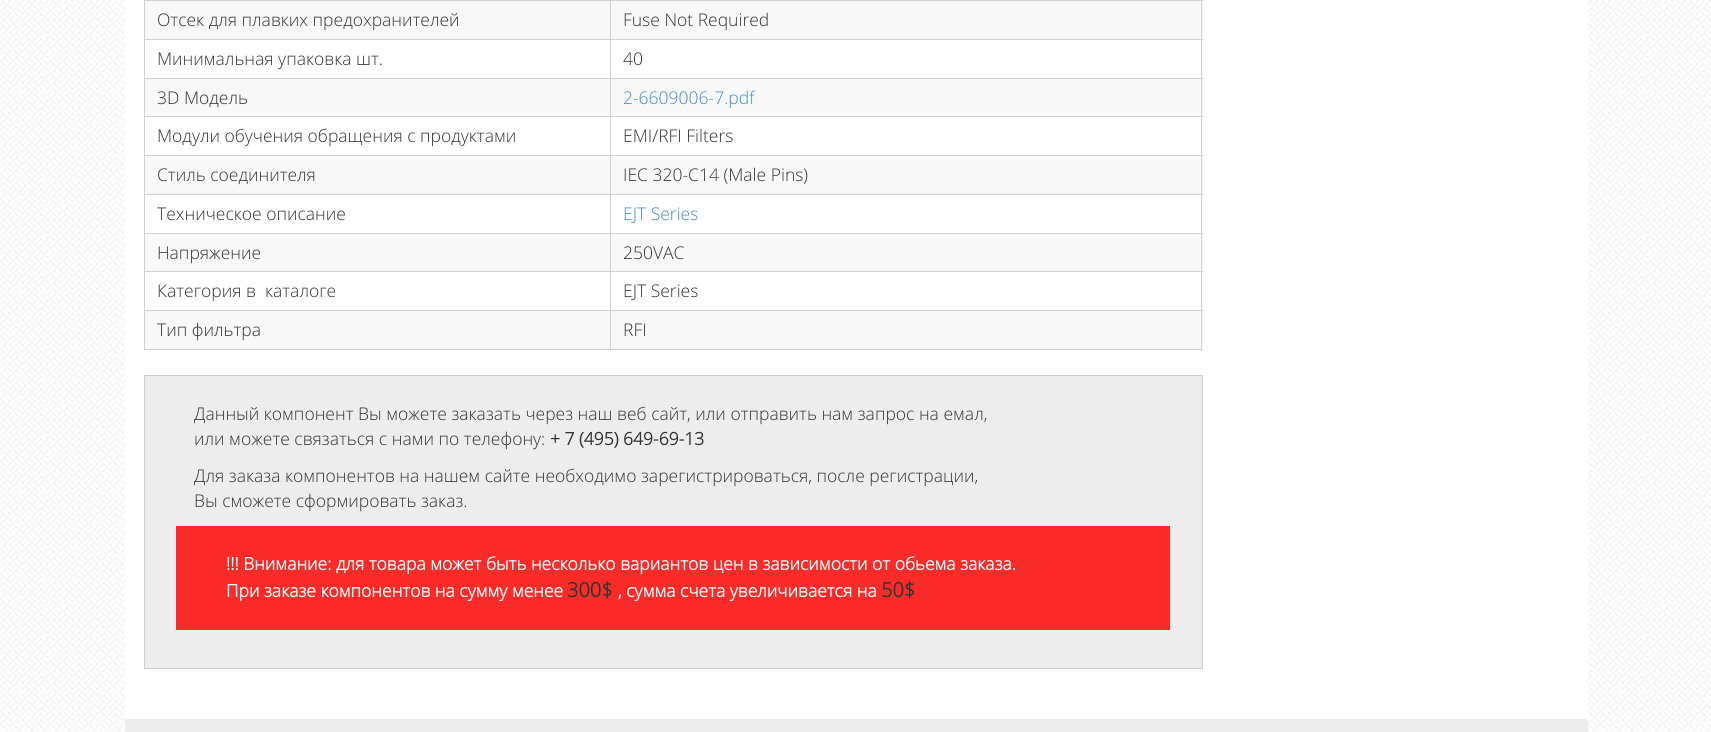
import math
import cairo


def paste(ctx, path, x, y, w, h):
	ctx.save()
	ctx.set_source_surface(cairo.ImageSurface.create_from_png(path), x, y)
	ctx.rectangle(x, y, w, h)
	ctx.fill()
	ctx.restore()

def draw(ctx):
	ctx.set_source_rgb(1, 1, 1)
	ctx.paint()
	paste(ctx, 'media/1.png', 0, 0, 1711, 732)
	ctx.set_source_rgb(1, 1, 1)
	ctx.rectangle(125, 0, 1463, 719)
	ctx.fill()
	ctx.set_source_rgb(0.969, 0.969, 0.969)
	ctx.rectangle(145, 1, 465, 38)
	ctx.fill()
	ctx.set_source_rgb(0.82, 0.82, 0.82)
	ctx.rectangle(610, 0, 593, 1)
	ctx.rectangle(610, 39, 593, 1)
	ctx.rectangle(610, 78, 593, 1)
	ctx.rectangle(610, 116, 593, 1)
	ctx.rectangle(610, 155, 593, 1)
	ctx.rectangle(610, 194, 593, 1)
	ctx.rectangle(610, 233, 593, 1)
	ctx.rectangle(610, 271, 593, 1)
	ctx.rectangle(610, 310, 593, 1)
	ctx.fill()
	ctx.set_source_rgb(0.969, 0.969, 0.969)
	ctx.rectangle(611, 311, 592, 38)
	ctx.fill()
	ctx.set_source_rgb(0.82, 0.82, 0.82)
	ctx.rectangle(1201, 310, 1, 40)
	ctx.rectangle(610, 349, 593, 1)
	ctx.rectangle(610, 310, 1, 40)
	ctx.rectangle(144, 310, 467, 1)
	ctx.rectangle(610, 271, 1, 40)
	ctx.rectangle(144, 271, 467, 1)
	ctx.rectangle(610, 233, 1, 40)
	ctx.rectangle(144, 233, 467, 1)
	ctx.rectangle(610, 194, 1, 40)
	ctx.rectangle(144, 194, 467, 1)
	ctx.rectangle(610, 155, 1, 40)
	ctx.rectangle(144, 155, 467, 1)
	ctx.rectangle(610, 116, 1, 40)
	ctx.rectangle(144, 116, 467, 1)
	ctx.rectangle(610, 78, 1, 40)
	ctx.rectangle(144, 78, 467, 1)
	ctx.rectangle(610, 39, 1, 40)
	ctx.rectangle(144, 39, 467, 1)
	ctx.rectangle(610, 0, 1, 40)
	ctx.rectangle(144, 0, 467, 1)
	ctx.rectangle(144, 349, 467, 1)
	ctx.rectangle(144, 310, 1, 40)
	ctx.rectangle(144, 271, 1, 40)
	ctx.rectangle(144, 233, 1, 40)
	ctx.rectangle(144, 194, 1, 40)
	ctx.rectangle(144, 155, 1, 40)
	ctx.rectangle(144, 116, 1, 40)
	ctx.rectangle(144, 78, 1, 40)
	ctx.rectangle(144, 39, 1, 40)
	ctx.rectangle(144, 0, 1, 40)
	ctx.fill()
	ctx.select_font_face('Open Sans Light')
	ctx.set_font_size(17.5)
	ctx.set_source_rgb(0.2, 0.2, 0.2)
	ctx.move_to(157, 26)
	ctx.show_text('Отсек для плавких предохранителей')
	ctx.set_source_rgb(0.969, 0.969, 0.969)
	ctx.rectangle(611, 1, 592, 38)
	ctx.rectangle(611, 79, 592, 37)
	ctx.rectangle(611, 156, 592, 38)
	ctx.rectangle(611, 234, 592, 37)
	ctx.fill()
	ctx.set_source_rgb(0.82, 0.82, 0.82)
	ctx.rectangle(1201, 271, 1, 40)
	ctx.rectangle(1201, 233, 1, 40)
	ctx.rectangle(1201, 194, 1, 40)
	ctx.rectangle(1201, 155, 1, 40)
	ctx.rectangle(1201, 116, 1, 40)
	ctx.rectangle(1201, 78, 1, 40)
	ctx.rectangle(1201, 39, 1, 40)
	ctx.rectangle(1201, 0, 1, 40)
	ctx.fill()
	ctx.set_source_rgb(0.2, 0.2, 0.2)
	for x, y, s in [
		(623, 26, 'Fuse Not Required'),
		(157, 65, 'Минимальная упаковка шт.'),
		(623, 65, '40'),
	]:
		ctx.move_to(x, y)
		ctx.show_text(s)
	ctx.set_source_rgb(0.969, 0.969, 0.969)
	ctx.rectangle(145, 79, 465, 37)
	ctx.fill()
	ctx.set_source_rgb(0.2, 0.2, 0.2)
	ctx.move_to(157, 104)
	ctx.show_text('3D Модель')
	ctx.set_source_rgb(0.259, 0.545, 0.792)
	ctx.move_to(623, 104)
	ctx.show_text('2-6609006-7.pdf')
	ctx.set_source_rgb(0.2, 0.2, 0.2)
	ctx.move_to(157, 142)
	ctx.show_text('Модули обучения обращения с продуктами')
	ctx.move_to(623, 142)
	ctx.show_text('EMI/RFI Filters')
	ctx.set_source_rgb(0.969, 0.969, 0.969)
	ctx.rectangle(145, 156, 465, 38)
	ctx.fill()
	ctx.set_source_rgb(0.2, 0.2, 0.2)
	for x, y, s in [
		(157, 181, 'Стиль соединителя'),
		(623, 181, 'IEC 320-C14 (Male Pins)'),
		(157, 220, 'Техническое описание'),
	]:
		ctx.move_to(x, y)
		ctx.show_text(s)
	ctx.set_source_rgb(0.259, 0.545, 0.792)
	ctx.move_to(623, 220)
	ctx.show_text('EJT Series')
	ctx.set_source_rgb(0.969, 0.969, 0.969)
	ctx.rectangle(145, 234, 465, 37)
	ctx.fill()
	ctx.set_source_rgb(0.2, 0.2, 0.2)
	for x, y, s in [
		(157, 259, 'Напряжение'),
		(623, 259, '250VAC'),
		(157, 297, 'Категория в  каталоге'),
		(623, 297, 'EJT Series'),
	]:
		ctx.move_to(x, y)
		ctx.show_text(s)
	ctx.set_source_rgb(0.969, 0.969, 0.969)
	ctx.rectangle(145, 311, 465, 38)
	ctx.fill()
	ctx.set_source_rgb(0.2, 0.2, 0.2)
	ctx.move_to(157, 336)
	ctx.show_text('Тип фильтра')
	ctx.move_to(623, 336)
	ctx.show_text('RFI')
	ctx.set_source_rgb(0.929, 0.929, 0.929)
	ctx.rectangle(144.5, 375.5, 1058, 293)
	ctx.fill_preserve()
	ctx.set_source_rgb(0.808, 0.808, 0.808)
	ctx.set_line_width(1)
	ctx.stroke()
	ctx.set_source_rgb(0.2, 0.2, 0.2)
	ctx.move_to(194, 420)
	ctx.show_text('Данный компонент Вы можете заказать через наш веб сайт, или отправить нам запрос на емал,')
	ctx.move_to(194, 445)
	ctx.show_text('или можете связаться с нами по телефону:')
	ctx.select_font_face('Open Sans', cairo.FONT_SLANT_NORMAL, cairo.FONT_WEIGHT_BOLD)
	ctx.move_to(550, 445)
	ctx.show_text('+ 7 (495) 649-69-13')
	ctx.select_font_face('Open Sans Light')
	ctx.move_to(194, 482)
	ctx.show_text('Для заказа компонентов на нашем сайте необходимо зарегистрироваться, после регистрации,')
	ctx.move_to(194, 507)
	ctx.show_text('Вы сможете сформировать заказ.')
	ctx.set_source_rgb(0.973, 0.169, 0.161)
	ctx.rectangle(176, 526, 994, 104)
	ctx.fill()
	ctx.select_font_face('Open Sans', cairo.FONT_SLANT_NORMAL, cairo.FONT_WEIGHT_BOLD)
	ctx.set_source_rgb(1, 1, 1)
	ctx.move_to(226, 570)
	ctx.show_text('!!! Внимание: для товара может быть несколько вариантов цен в зависимости от обьема заказа.')
	ctx.move_to(226, 597)
	ctx.show_text('При заказе компонентов на сумму менее')
	ctx.set_font_size(20)
	ctx.set_source_rgb(0.2, 0.2, 0.2)
	ctx.move_to(567, 597)
	ctx.show_text('300$')
	ctx.set_font_size(17.5)
	ctx.set_source_rgb(1, 1, 1)
	ctx.move_to(618, 597)
	ctx.show_text(', сумма счета увеличивается на')
	ctx.set_font_size(20)
	ctx.set_source_rgb(0.2, 0.2, 0.2)
	ctx.move_to(881, 597)
	ctx.show_text('50$')
	ctx.set_source_rgb(0.929, 0.929, 0.929)
	ctx.rectangle(125, 719, 1463, 13)
	ctx.fill()


surface = cairo.ImageSurface(cairo.FORMAT_RGB24, 1711, 732)
ctx = cairo.Context(surface)
options = cairo.FontOptions()
options.set_hint_metrics(cairo.HINT_METRICS_OFF)
options.set_hint_style(cairo.HINT_STYLE_NONE)
ctx.set_font_options(options)
ctx.set_miter_limit(4)
draw(ctx)
surface.write_to_png('image.png')
